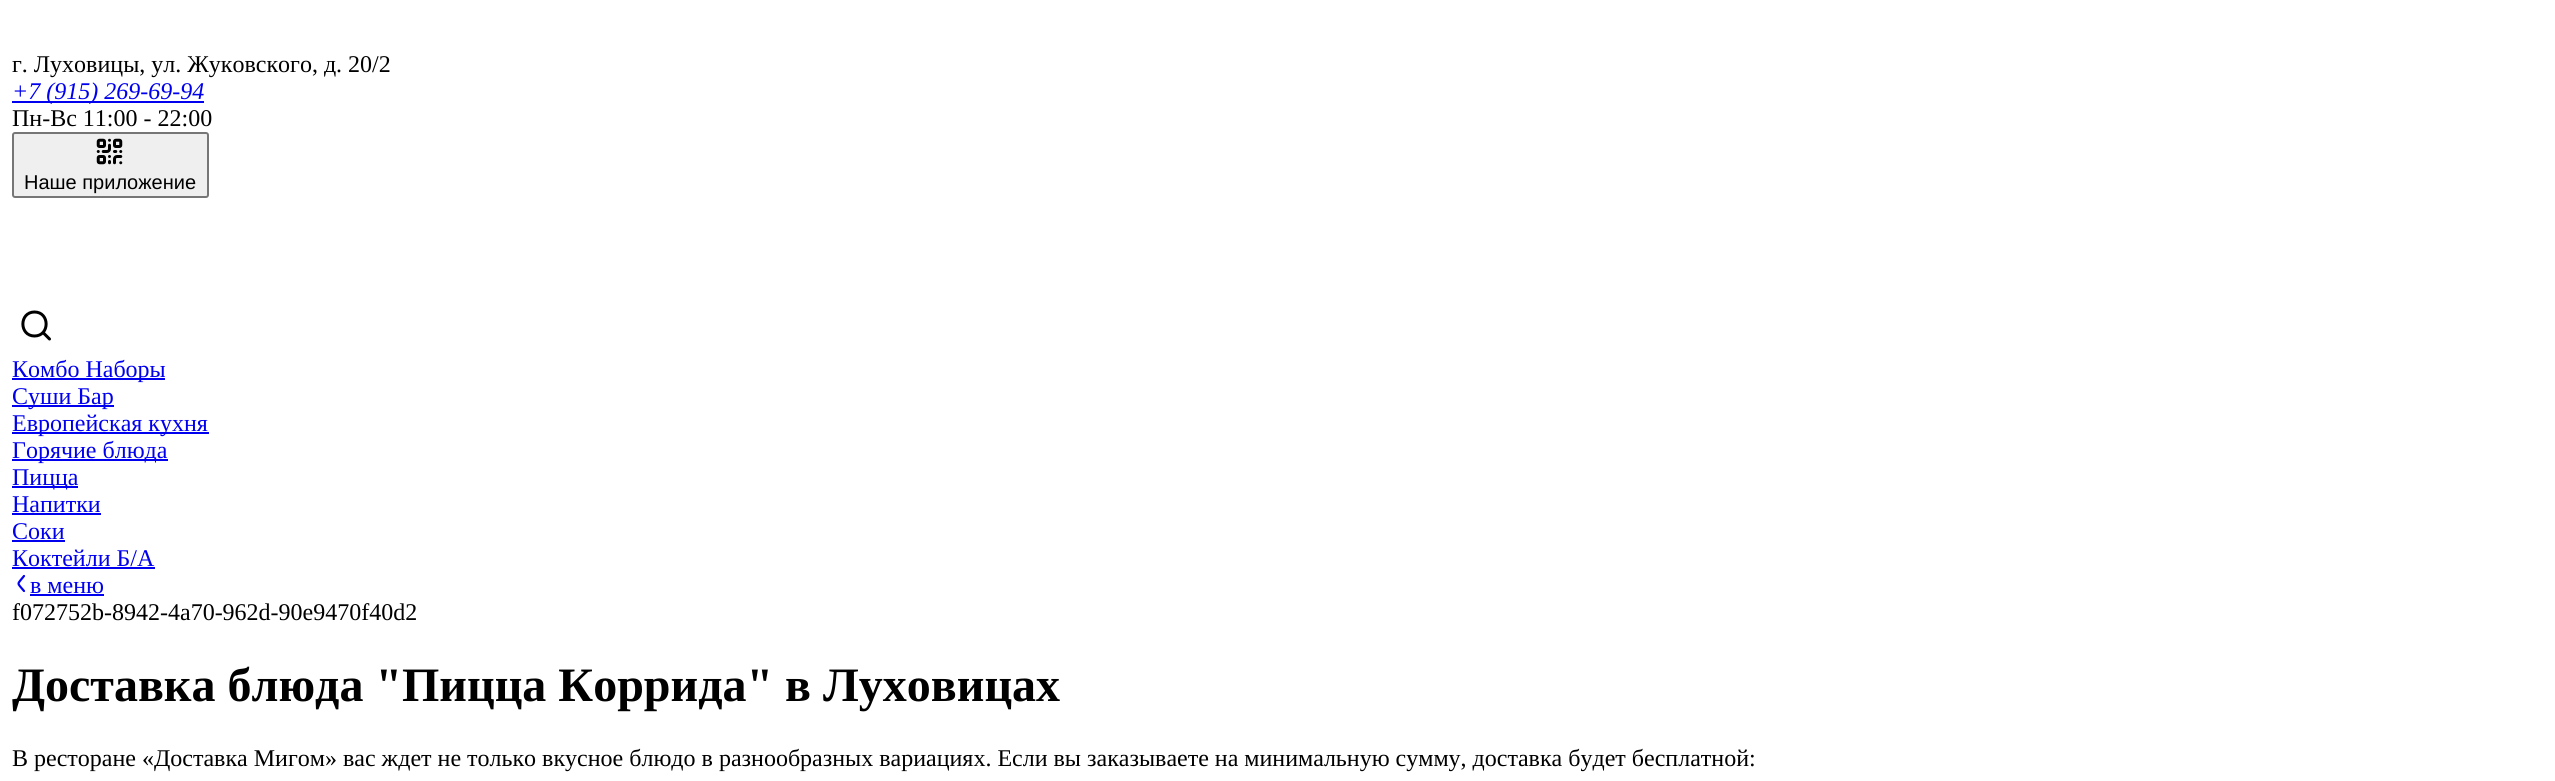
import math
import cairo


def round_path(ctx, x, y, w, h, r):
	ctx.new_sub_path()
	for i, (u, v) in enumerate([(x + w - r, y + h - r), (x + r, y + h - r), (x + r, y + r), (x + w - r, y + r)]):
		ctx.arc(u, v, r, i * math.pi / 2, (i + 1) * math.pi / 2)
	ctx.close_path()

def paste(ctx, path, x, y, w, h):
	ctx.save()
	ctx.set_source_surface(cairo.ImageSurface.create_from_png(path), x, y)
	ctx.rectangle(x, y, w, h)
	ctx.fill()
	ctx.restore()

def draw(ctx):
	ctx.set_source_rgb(1, 1, 1)
	ctx.paint()
	ctx.select_font_face('Liberation Serif')
	ctx.set_font_size(24)
	ctx.set_source_rgb(0, 0, 0)
	ctx.move_to(12, 72)
	ctx.show_text('г. Луховицы, ул. Жуковского, д. 20/2')
	ctx.set_source_rgb(0, 0, 0.933)
	ctx.rectangle(12, 101, 192, 2)
	ctx.fill()
	ctx.select_font_face('Liberation Serif', cairo.FONT_SLANT_ITALIC)
	ctx.move_to(12, 99)
	ctx.show_text('+7 (915) 269-69-94')
	ctx.select_font_face('Liberation Serif')
	ctx.set_source_rgb(0, 0, 0)
	ctx.move_to(12, 126)
	ctx.show_text('Пн-Вс 11:00 - 22:00')
	ctx.set_source_rgb(0.937, 0.937, 0.937)
	round_path(ctx, 13, 133, 195, 64, 2)
	ctx.fill_preserve()
	ctx.set_source_rgb(0.463, 0.463, 0.463)
	ctx.stroke()
	paste(ctx, 'media/1.png', 96, 138, 27, 27)
	ctx.select_font_face('Liberation Sans')
	ctx.set_font_size(20)
	ctx.set_source_rgb(0, 0, 0)
	ctx.move_to(24, 189)
	ctx.show_text('Наше приложение')
	ctx.new_path()
	ctx.move_to(34.5, 336)
	ctx.curve_to(50, 336, 50, 312, 34.5, 312)
	ctx.curve_to(19, 312, 19, 336, 34.5, 336)
	ctx.close_path()
	ctx.move_to(49.5, 339)
	ctx.line_to(43, 332.5)
	ctx.set_line_width(3)
	ctx.set_line_cap(cairo.LINE_CAP_ROUND)
	ctx.set_line_join(cairo.LINE_JOIN_ROUND)
	ctx.stroke()
	ctx.set_source_rgb(0, 0, 0.933)
	ctx.rectangle(12, 378, 153, 2)
	ctx.fill()
	ctx.select_font_face('Liberation Serif')
	ctx.set_font_size(24)
	ctx.move_to(12, 377)
	ctx.show_text('Комбо Наборы')
	ctx.rectangle(12, 405, 102, 2)
	ctx.fill()
	ctx.move_to(12, 404)
	ctx.show_text('Суши Бар')
	ctx.rectangle(12, 432, 197, 2)
	ctx.fill()
	ctx.move_to(12, 431)
	ctx.show_text('Европейская кухня')
	ctx.rectangle(12, 459, 156, 2)
	ctx.fill()
	ctx.move_to(12, 458)
	ctx.show_text('Горячие блюда')
	ctx.rectangle(12, 486, 66, 2)
	ctx.fill()
	ctx.move_to(12, 485)
	ctx.show_text('Пицца')
	ctx.move_to(12, 512)
	ctx.show_text('Напитки')
	ctx.rectangle(12, 513, 89, 2)
	ctx.fill()
	ctx.move_to(12, 539)
	ctx.show_text('Соки')
	ctx.rectangle(12, 540, 53, 2)
	ctx.fill()
	ctx.move_to(12, 566)
	ctx.show_text('Коктейли Б/А')
	ctx.rectangle(12, 567, 143, 2)
	ctx.fill()
	ctx.move_to(30, 593)
	ctx.show_text('в меню')
	ctx.rectangle(30, 594, 74, 2)
	ctx.fill()
	ctx.new_path()
	ctx.move_to(24, 576)
	ctx.curve_to(17, 585, 16.5, 582, 24, 591)
	ctx.set_line_width(2.2)
	ctx.set_line_join(cairo.LINE_JOIN_MITER)
	ctx.stroke()
	ctx.set_source_rgb(0, 0, 0)
	ctx.move_to(12, 620)
	ctx.show_text('f072752b-8942-4a70-962d-90e9470f40d2')
	ctx.select_font_face('Liberation Serif', cairo.FONT_SLANT_NORMAL, cairo.FONT_WEIGHT_BOLD)
	ctx.set_font_size(48)
	ctx.move_to(12, 701)
	ctx.show_text('Доставка блюда "Пицца Коррида" в Луховицах')
	ctx.select_font_face('Liberation Serif')
	ctx.set_font_size(24)
	ctx.move_to(12, 766)
	ctx.show_text('В ресторане «Доставка Мигом» вас ждет не только вкусное блюдо в разнообразных вариациях. Если вы заказываете на минимальную сумму, доставка будет бесплатной:')


surface = cairo.ImageSurface(cairo.FORMAT_RGB24, 2555, 781)
ctx = cairo.Context(surface)
options = cairo.FontOptions()
options.set_hint_metrics(cairo.HINT_METRICS_OFF)
options.set_hint_style(cairo.HINT_STYLE_NONE)
ctx.set_font_options(options)
ctx.set_miter_limit(4)
draw(ctx)
surface.write_to_png('image.png')
